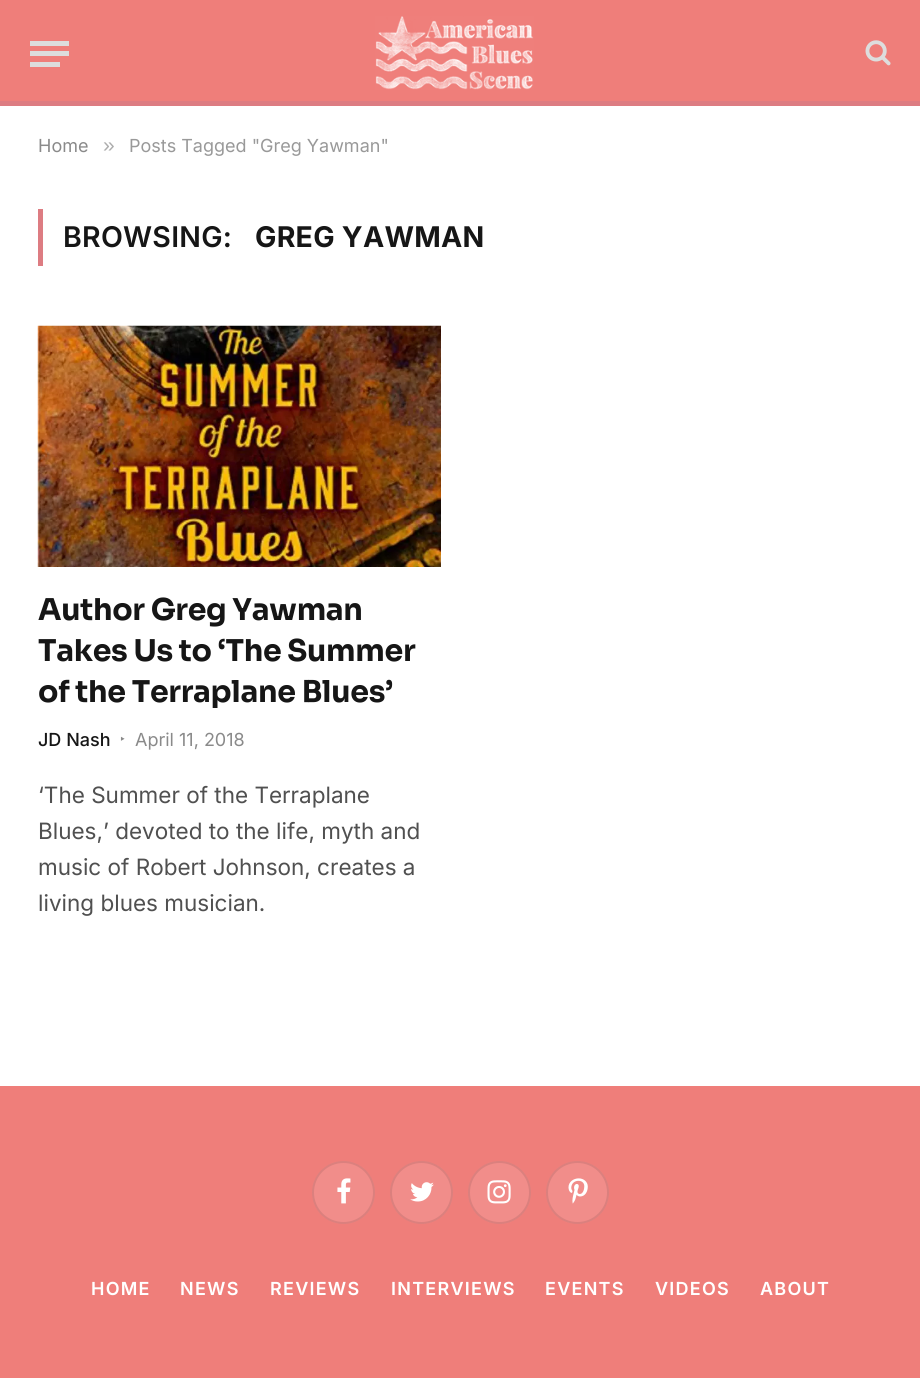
import math
import cairo


def write_spaced(ctx, x, y, s, letter, word):
	ctx.move_to(x, y)
	for ch in s:
		ctx.show_text(ch)
		ctx.rel_move_to(letter + word * (ch == ' '), 0)

def paste(ctx, path, x, y, w, h):
	ctx.save()
	ctx.set_source_surface(cairo.ImageSurface.create_from_png(path), x, y)
	ctx.rectangle(x, y, w, h)
	ctx.fill()
	ctx.restore()

def draw(ctx):
	ctx.set_source_rgb(1, 1, 1)
	ctx.paint()
	ctx.set_source_rgb(0.937, 0.494, 0.478)
	ctx.rectangle(0, 0, 920, 101)
	ctx.fill()
	ctx.set_source_rgb(0.867, 0.486, 0.51)
	ctx.rectangle(0, 101, 920, 5)
	ctx.fill()
	ctx.set_source_rgb(0.867, 0.867, 0.867)
	ctx.rectangle(30, 62, 30, 5)
	ctx.rectangle(30, 41, 39, 5)
	ctx.rectangle(30, 51, 39, 5)
	ctx.fill()
	paste(ctx, 'media/1.png', 375, 16, 159, 74)
	paste(ctx, 'media/2.png', 865, 40, 26, 26)
	ctx.select_font_face('Inter')
	ctx.set_font_size(18)
	ctx.set_source_rgb(0.541, 0.541, 0.541)
	ctx.move_to(38, 152)
	ctx.show_text('Home')
	ctx.select_font_face('Liberation Sans')
	ctx.set_font_size(21)
	ctx.set_source_rgb(0.678, 0.678, 0.678)
	ctx.move_to(103, 152)
	ctx.show_text('»')
	ctx.select_font_face('Inter')
	ctx.set_font_size(18)
	ctx.set_source_rgb(0.6, 0.6, 0.6)
	ctx.move_to(129, 152)
	ctx.show_text('Posts Tagged "Greg Yawman"')
	ctx.set_source_rgb(0.867, 0.486, 0.51)
	ctx.rectangle(38, 209, 5, 57)
	ctx.fill()
	ctx.select_font_face('Inter SemiBold')
	ctx.set_font_size(28.5)
	ctx.set_source_rgb(0.086, 0.086, 0.086)
	write_spaced(ctx, 63, 247, 'BROWSING:', 0.25, 0)
	ctx.select_font_face('Inter', cairo.FONT_SLANT_NORMAL, cairo.FONT_WEIGHT_BOLD)
	write_spaced(ctx, 255, 247, 'GREG YAWMAN', 0.25, 0)
	paste(ctx, 'media/3.png', 37, 325, 404, 242)
	ctx.select_font_face('Sora', cairo.FONT_SLANT_NORMAL, cairo.FONT_WEIGHT_BOLD)
	ctx.set_font_size(30)
	for x, y, s in [
		(38, 620, 'Author Greg Yawman'),
		(38, 661, 'Takes Us to ‘The Summer'),
		(38, 702, 'of the Terraplane Blues’'),
	]:
		write_spaced(ctx, x, y, s, -0.3, 0)
	ctx.select_font_face('Inter Medium')
	ctx.set_font_size(18)
	ctx.move_to(38, 746)
	ctx.show_text('JD Nash')
	ctx.select_font_face('Noto Sans')
	ctx.set_font_size(14)
	ctx.set_source_rgb(0.541, 0.541, 0.541)
	ctx.move_to(120, 744)
	ctx.show_text('‣')
	ctx.select_font_face('Inter')
	ctx.set_font_size(18)
	ctx.move_to(135, 746)
	ctx.show_text('April 11, 2018')
	ctx.set_font_size(22.5)
	ctx.set_source_rgb(0.314, 0.314, 0.314)
	for x, y, s in [
		(38, 803, '‘The Summer of the Terraplane'),
		(38, 839, 'Blues,’ devoted to the life, myth and'),
		(38, 875, 'music of Robert Johnson, creates a'),
		(38, 911, 'living blues musician.'),
	]:
		ctx.move_to(x, y)
		ctx.show_text(s)
	ctx.set_source_rgb(0.937, 0.494, 0.478)
	ctx.rectangle(0, 1086, 920, 292)
	ctx.fill()
	ctx.set_source_rgb(0.945, 0.553, 0.541)
	ctx.arc(343.5, 1192.5, 31.5, 0, 2 * math.pi)
	ctx.fill()
	ctx.arc(343.5, 1192.5, 30.5, 0, 2 * math.pi)
	ctx.set_source_rgba(0, 0, 0, 0.09)
	ctx.stroke()
	paste(ctx, 'media/4.png', 337, 1178, 14, 26)
	ctx.set_source_rgb(0.945, 0.553, 0.541)
	ctx.arc(421.5, 1192.5, 31.5, 0, 2 * math.pi)
	ctx.fill()
	ctx.arc(421.5, 1192.5, 30.5, 0, 2 * math.pi)
	ctx.set_source_rgba(0, 0, 0, 0.09)
	ctx.stroke()
	paste(ctx, 'media/5.png', 410, 1182, 24, 20)
	ctx.set_source_rgb(0.945, 0.553, 0.541)
	ctx.arc(499.5, 1192.5, 31.5, 0, 2 * math.pi)
	ctx.fill()
	ctx.arc(499.5, 1192.5, 30.5, 0, 2 * math.pi)
	ctx.set_source_rgba(0, 0, 0, 0.09)
	ctx.stroke()
	paste(ctx, 'media/6.png', 487, 1180, 24, 24)
	ctx.set_source_rgb(0.945, 0.553, 0.541)
	ctx.arc(577.5, 1192.5, 31.5, 0, 2 * math.pi)
	ctx.fill()
	ctx.arc(577.5, 1192.5, 30.5, 0, 2 * math.pi)
	ctx.set_source_rgba(0, 0, 0, 0.09)
	ctx.stroke()
	paste(ctx, 'media/7.png', 568, 1178, 20, 26)
	ctx.select_font_face('Inter SemiBold')
	ctx.set_font_size(18)
	ctx.set_source_rgb(1, 1, 1)
	for x, y, s in [
		(91, 1295, 'HOME'),
		(180, 1295, 'NEWS'),
		(270, 1295, 'REVIEWS'),
		(391, 1295, 'INTERVIEWS'),
		(545, 1295, 'EVENTS'),
		(655, 1295, 'VIDEOS'),
		(760, 1295, 'ABOUT'),
	]:
		write_spaced(ctx, x, y, s, 1.25, 0)


surface = cairo.ImageSurface(cairo.FORMAT_RGB24, 920, 1378)
ctx = cairo.Context(surface)
options = cairo.FontOptions()
options.set_hint_metrics(cairo.HINT_METRICS_OFF)
options.set_hint_style(cairo.HINT_STYLE_NONE)
ctx.set_font_options(options)
ctx.set_miter_limit(4)
draw(ctx)
surface.write_to_png('image.png')
